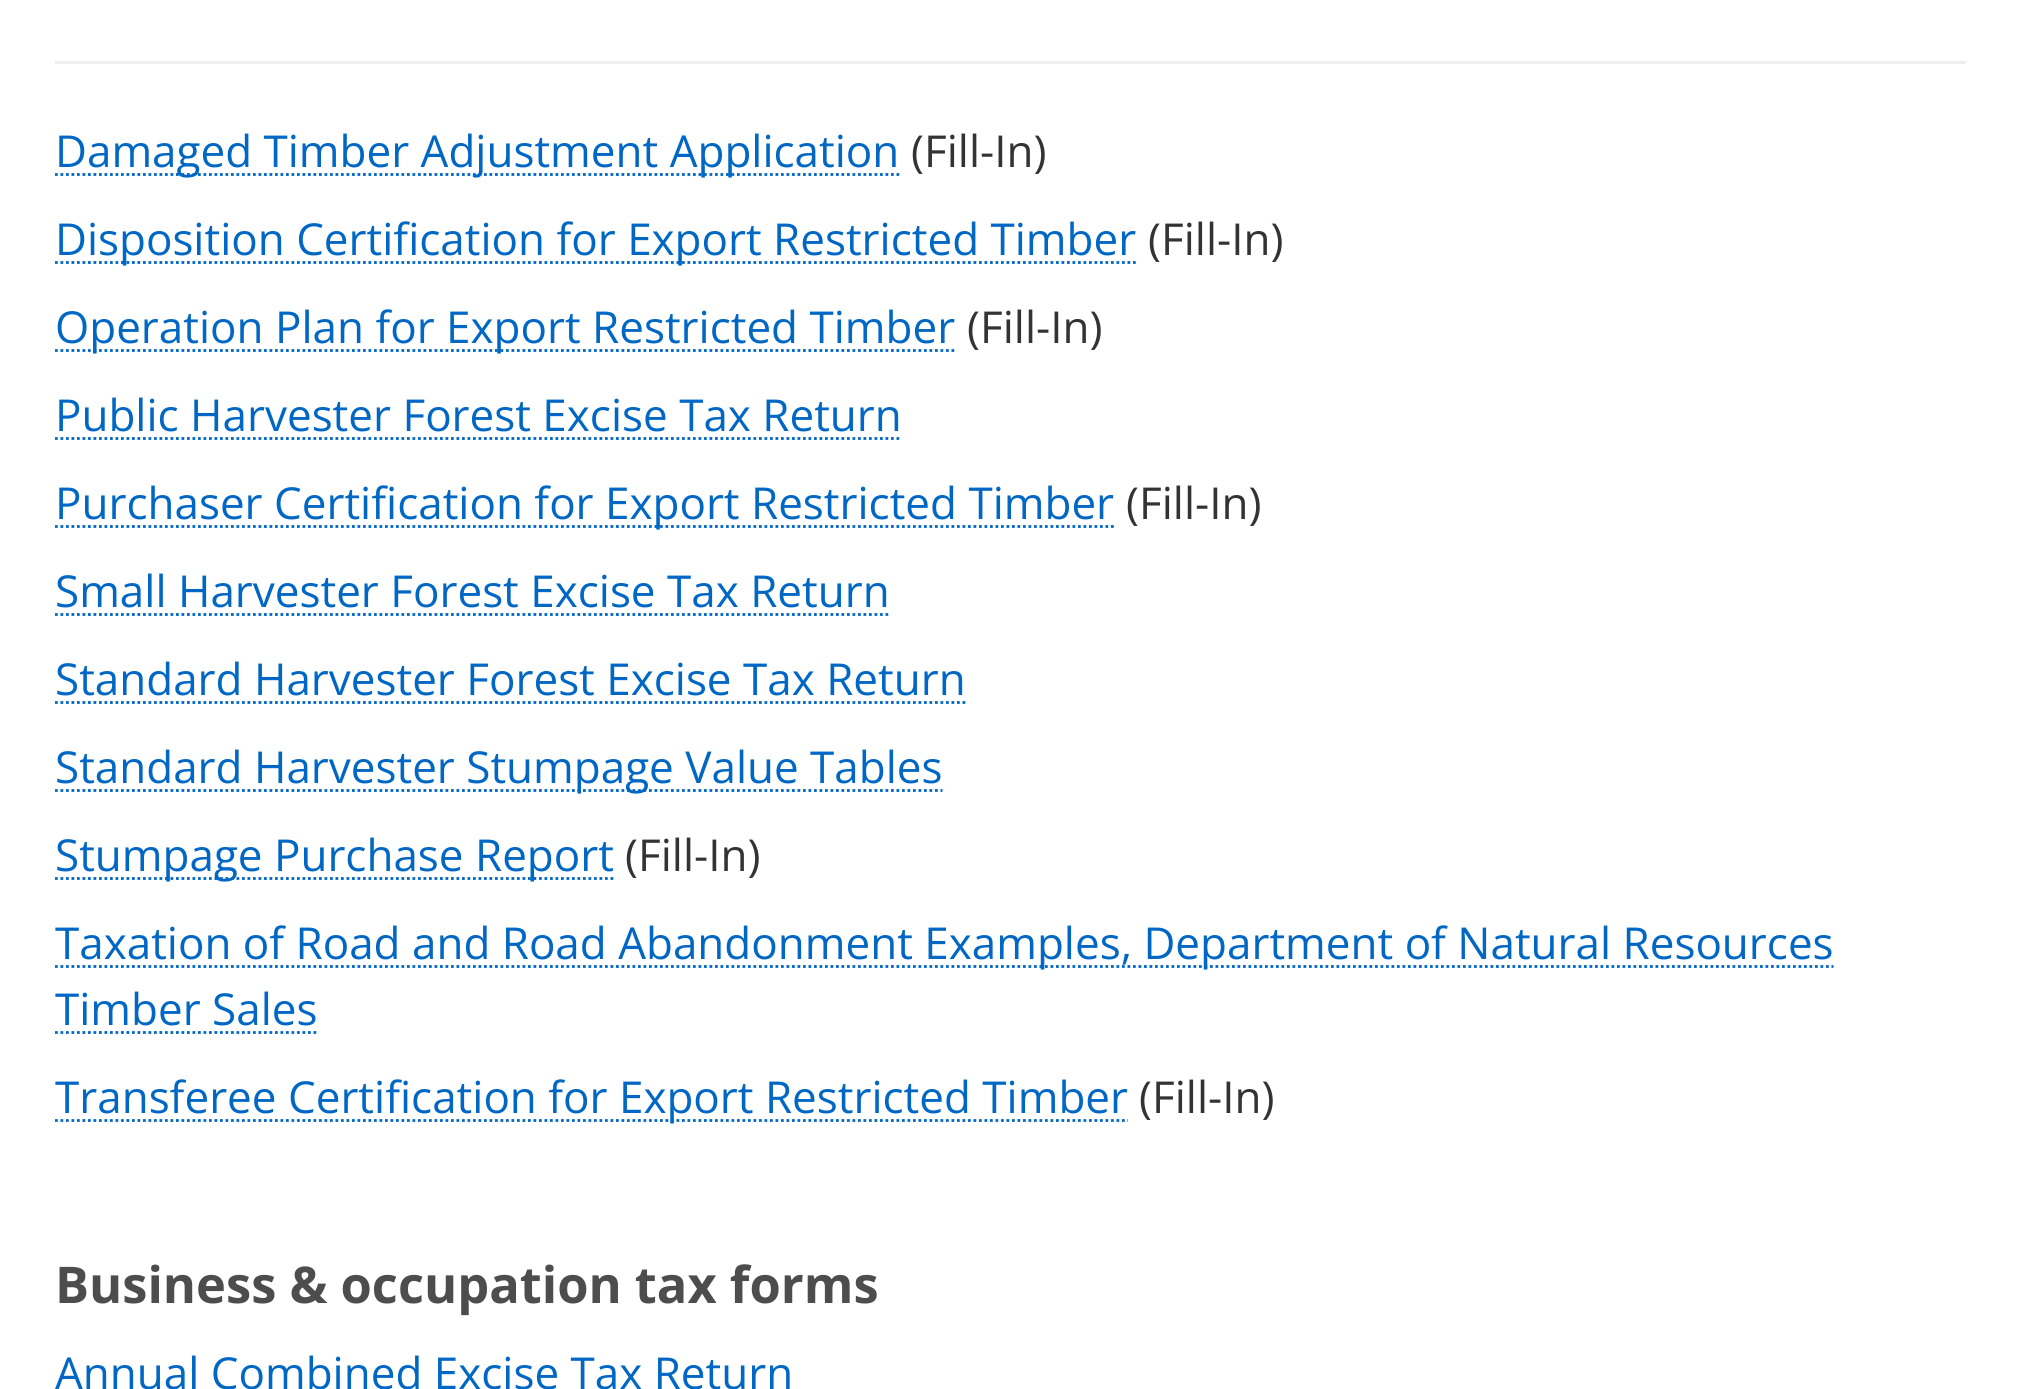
import math
import cairo


def draw(ctx):
	ctx.set_source_rgb(1, 1, 1)
	ctx.paint()
	ctx.set_source_rgb(0.933, 0.933, 0.933)
	ctx.rectangle(55, 61, 1911, 3)
	ctx.fill()
	ctx.new_path()
	ctx.move_to(55, 174.5)
	ctx.line_to(899.5, 174.5)
	ctx.set_source_rgb(0, 0.404, 0.769)
	ctx.set_line_width(2.8)
	ctx.set_dash([2.75, 2.75])
	ctx.stroke()
	ctx.select_font_face('Open Sans')
	ctx.set_font_size(44)
	ctx.move_to(55, 167)
	ctx.show_text('Damaged Timber Adjustment Application')
	ctx.set_source_rgb(0.2, 0.2, 0.2)
	ctx.move_to(911, 167)
	ctx.show_text('(Fill-In)')
	ctx.new_path()
	ctx.move_to(55, 262.5)
	ctx.line_to(1136, 262.5)
	ctx.set_source_rgb(0, 0.404, 0.769)
	ctx.stroke()
	ctx.move_to(55, 255)
	ctx.show_text('Disposition Certification for Export Restricted Timber')
	ctx.set_source_rgb(0.2, 0.2, 0.2)
	ctx.move_to(1148, 255)
	ctx.show_text('(Fill-In)')
	ctx.new_path()
	ctx.move_to(55, 350.5)
	ctx.line_to(955, 350.5)
	ctx.set_source_rgb(0, 0.404, 0.769)
	ctx.stroke()
	ctx.move_to(55, 343)
	ctx.show_text('Operation Plan for Export Restricted Timber')
	ctx.set_source_rgb(0.2, 0.2, 0.2)
	ctx.move_to(967, 343)
	ctx.show_text('(Fill-In)')
	ctx.set_source_rgb(0, 0.404, 0.769)
	ctx.move_to(55, 431)
	ctx.show_text('Public Harvester Forest Excise Tax Return')
	ctx.new_path()
	ctx.move_to(55, 438.5)
	ctx.line_to(902, 438.5)
	ctx.stroke()
	ctx.new_path()
	ctx.move_to(55, 526.5)
	ctx.line_to(1114, 526.5)
	ctx.stroke()
	ctx.move_to(55, 519)
	ctx.show_text('Purchaser Certification for Export Restricted Timber')
	ctx.set_source_rgb(0.2, 0.2, 0.2)
	ctx.move_to(1126, 519)
	ctx.show_text('(Fill-In)')
	ctx.set_source_rgb(0, 0.404, 0.769)
	ctx.move_to(55, 607)
	ctx.show_text('Small Harvester Forest Excise Tax Return')
	ctx.new_path()
	ctx.move_to(55, 614.5)
	ctx.line_to(889.5, 614.5)
	ctx.stroke()
	ctx.move_to(55, 695)
	ctx.show_text('Standard Harvester Forest Excise Tax Return')
	ctx.new_path()
	ctx.move_to(55, 702.5)
	ctx.line_to(965.5, 702.5)
	ctx.stroke()
	ctx.new_path()
	ctx.move_to(55, 790.5)
	ctx.line_to(942.5, 790.5)
	ctx.stroke()
	ctx.move_to(55, 783)
	ctx.show_text('Standard Harvester Stumpage Value Tables')
	ctx.new_path()
	ctx.move_to(55, 878.5)
	ctx.line_to(614, 878.5)
	ctx.stroke()
	ctx.move_to(55, 871)
	ctx.show_text('Stumpage Purchase Report')
	ctx.set_source_rgb(0.2, 0.2, 0.2)
	ctx.move_to(625, 871)
	ctx.show_text('(Fill-In)')
	ctx.new_path()
	ctx.move_to(55, 966.5)
	ctx.line_to(1833.5, 966.5)
	ctx.set_source_rgb(0, 0.404, 0.769)
	ctx.stroke()
	ctx.move_to(55, 959)
	ctx.show_text('Taxation of Road and Road Abandonment Examples, Department of Natural Resources')
	ctx.move_to(55, 1025)
	ctx.show_text('Timber Sales')
	ctx.new_path()
	ctx.move_to(55, 1032.5)
	ctx.line_to(317.5, 1032.5)
	ctx.stroke()
	ctx.new_path()
	ctx.move_to(55, 1120.5)
	ctx.line_to(1128, 1120.5)
	ctx.stroke()
	ctx.move_to(55, 1113)
	ctx.show_text('Transferee Certification for Export Restricted Timber')
	ctx.set_source_rgb(0.2, 0.2, 0.2)
	ctx.move_to(1139, 1113)
	ctx.show_text('(Fill-In)')
	ctx.select_font_face('Open Sans', cairo.FONT_SLANT_NORMAL, cairo.FONT_WEIGHT_BOLD)
	ctx.set_font_size(50.6)
	ctx.set_source_rgb(0.302, 0.302, 0.302)
	ctx.move_to(55, 1303)
	ctx.show_text('Business & occupation tax forms')
	ctx.select_font_face('Open Sans')
	ctx.set_font_size(44)
	ctx.set_source_rgb(0, 0.404, 0.769)
	ctx.move_to(55, 1389)
	ctx.show_text('Annual Combined Excise Tax Return')


surface = cairo.ImageSurface(cairo.FORMAT_RGB24, 2019, 1389)
ctx = cairo.Context(surface)
options = cairo.FontOptions()
options.set_hint_metrics(cairo.HINT_METRICS_OFF)
options.set_hint_style(cairo.HINT_STYLE_NONE)
ctx.set_font_options(options)
ctx.set_miter_limit(4)
draw(ctx)
surface.write_to_png('image.png')
